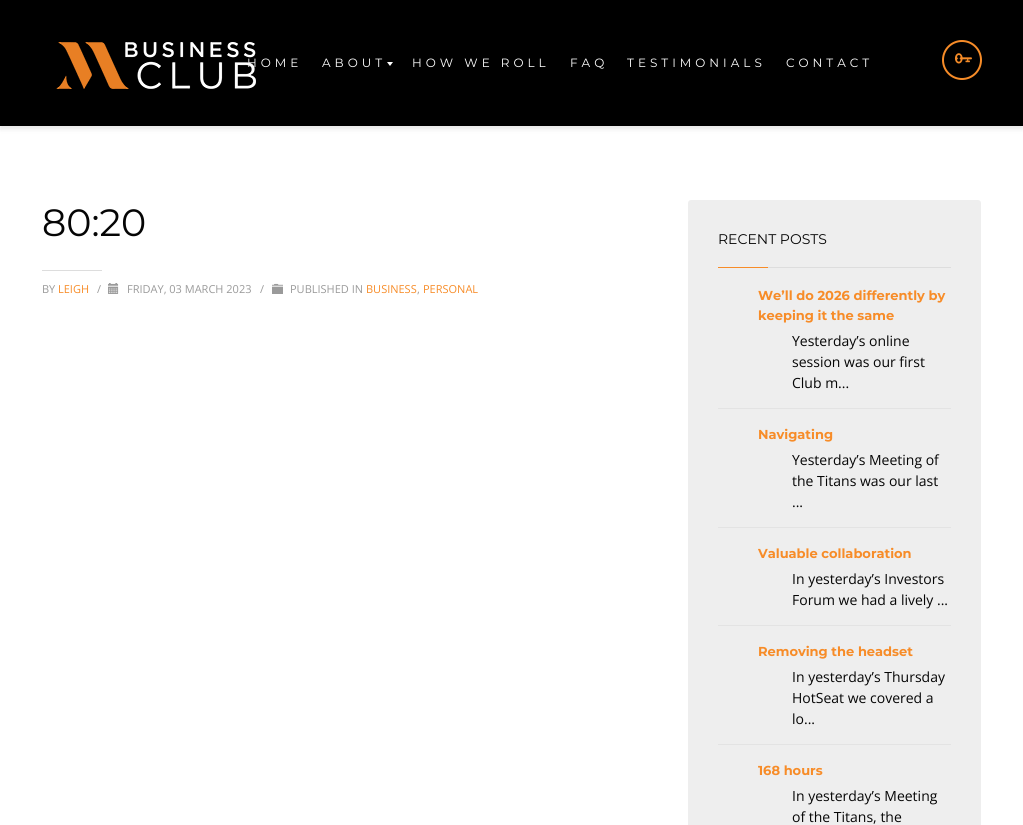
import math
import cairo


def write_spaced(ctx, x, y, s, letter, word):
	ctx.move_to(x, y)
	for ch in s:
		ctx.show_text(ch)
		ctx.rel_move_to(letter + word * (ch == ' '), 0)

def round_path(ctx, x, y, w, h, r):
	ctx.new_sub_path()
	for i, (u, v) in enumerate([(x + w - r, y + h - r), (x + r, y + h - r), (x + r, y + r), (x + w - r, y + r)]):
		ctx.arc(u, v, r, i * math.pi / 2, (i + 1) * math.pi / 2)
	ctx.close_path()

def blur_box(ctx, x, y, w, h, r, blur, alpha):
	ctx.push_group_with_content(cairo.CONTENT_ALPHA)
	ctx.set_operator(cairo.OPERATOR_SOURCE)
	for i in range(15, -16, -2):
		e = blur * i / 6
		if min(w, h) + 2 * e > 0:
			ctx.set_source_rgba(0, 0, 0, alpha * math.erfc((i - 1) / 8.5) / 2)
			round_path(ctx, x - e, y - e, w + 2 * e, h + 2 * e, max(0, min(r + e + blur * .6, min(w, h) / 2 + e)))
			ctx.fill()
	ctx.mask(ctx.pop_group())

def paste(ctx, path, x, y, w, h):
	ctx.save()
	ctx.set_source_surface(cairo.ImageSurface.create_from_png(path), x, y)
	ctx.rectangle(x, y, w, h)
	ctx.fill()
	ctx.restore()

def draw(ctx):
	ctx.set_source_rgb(1, 1, 1)
	ctx.paint()
	ctx.set_source_rgb(0, 0, 0)
	blur_box(ctx, 0, 3, 1023, 126, 0, 2.5, 0.1)
	ctx.set_source_rgb(0, 0, 0)
	ctx.rectangle(0, 0, 1023, 126)
	ctx.fill()
	ctx.select_font_face('Montserrat')
	ctx.set_font_size(12)
	ctx.set_source_rgb(1, 1, 1)
	write_spaced(ctx, 247, 67, 'HOME', 4, 0)
	paste(ctx, 'media/1.png', 56, 42, 200, 47)
	write_spaced(ctx, 322, 67, 'ABOUT', 4, 0)
	ctx.new_path()
	ctx.move_to(387, 62)
	ctx.line_to(393, 62)
	ctx.line_to(390, 66)
	ctx.close_path()
	ctx.fill()
	for x, y, s in [
		(412, 67, 'HOW WE ROLL'),
		(570, 67, 'FAQ'),
		(627, 67, 'TESTIMONIALS'),
		(786, 67, 'CONTACT'),
	]:
		write_spaced(ctx, x, y, s, 4, 0)
	ctx.new_path()
	ctx.arc(962, 60, 19, 0, 2 * math.pi)
	ctx.set_source_rgb(0.965, 0.549, 0.157)
	ctx.stroke()
	paste(ctx, 'media/2.png', 954, 53, 18, 11)
	ctx.set_font_size(38)
	ctx.set_source_rgb(0.02, 0.02, 0.02)
	ctx.move_to(42, 236)
	ctx.show_text('80:20')
	ctx.set_source_rgb(0.867, 0.867, 0.867)
	ctx.rectangle(42, 270, 60, 1)
	ctx.fill()
	ctx.select_font_face('Open Sans')
	ctx.set_font_size(11)
	ctx.set_source_rgb(0.604, 0.604, 0.604)
	ctx.move_to(42, 293)
	ctx.show_text('BY')
	ctx.set_source_rgb(0.965, 0.549, 0.157)
	ctx.move_to(58, 293)
	ctx.show_text('LEIGH')
	ctx.set_source_rgb(0.604, 0.604, 0.604)
	ctx.move_to(97, 293)
	ctx.show_text('/')
	paste(ctx, 'media/3.png', 108, 283, 11, 11)
	ctx.move_to(127, 293)
	ctx.show_text('FRIDAY, 03 MARCH 2023')
	ctx.move_to(260, 293)
	ctx.show_text('/')
	paste(ctx, 'media/4.png', 272, 283, 11, 11)
	ctx.move_to(290, 293)
	ctx.show_text('PUBLISHED IN')
	ctx.set_source_rgb(0.965, 0.549, 0.157)
	ctx.move_to(366, 293)
	ctx.show_text('BUSINESS')
	ctx.set_source_rgb(0.604, 0.604, 0.604)
	ctx.move_to(417, 293)
	ctx.show_text(',')
	ctx.set_source_rgb(0.965, 0.549, 0.157)
	ctx.move_to(423, 293)
	ctx.show_text('PERSONAL')
	ctx.set_source_rgb(0.933, 0.933, 0.933)
	round_path(ctx, 688, 200, 293, 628, 3)
	ctx.fill()
	ctx.select_font_face('Montserrat')
	ctx.set_font_size(14)
	ctx.set_source_rgb(0.02, 0.02, 0.02)
	ctx.move_to(718, 244)
	ctx.show_text('RECENT POSTS')
	ctx.set_source_rgb(0.965, 0.549, 0.157)
	ctx.rectangle(718, 267, 50, 1)
	ctx.fill()
	ctx.set_source_rgb(0.867, 0.867, 0.867)
	ctx.rectangle(768, 267, 183, 1)
	ctx.fill()
	ctx.set_source_rgb(0.89, 0.89, 0.89)
	ctx.rectangle(718, 408, 233, 1)
	ctx.fill()
	ctx.select_font_face('Montserrat', cairo.FONT_SLANT_NORMAL, cairo.FONT_WEIGHT_BOLD)
	ctx.set_font_size(13)
	ctx.set_source_rgb(0.965, 0.549, 0.157)
	ctx.move_to(758, 300)
	ctx.show_text('We’ll do 2026 differently by')
	ctx.move_to(758, 320)
	ctx.show_text('keeping it the same')
	ctx.select_font_face('Open Sans')
	ctx.set_font_size(14)
	ctx.set_source_rgb(0.02, 0.02, 0.02)
	for x, y, s in [
		(792, 346, 'Yesterday’s online'),
		(792, 367, 'session was our first'),
		(792, 388, 'Club m...'),
	]:
		ctx.move_to(x, y)
		ctx.show_text(s)
	ctx.set_source_rgb(0.89, 0.89, 0.89)
	ctx.rectangle(718, 527, 233, 1)
	ctx.fill()
	ctx.select_font_face('Montserrat', cairo.FONT_SLANT_NORMAL, cairo.FONT_WEIGHT_BOLD)
	ctx.set_font_size(13)
	ctx.set_source_rgb(0.965, 0.549, 0.157)
	ctx.move_to(758, 439)
	ctx.show_text('Navigating')
	ctx.select_font_face('Open Sans')
	ctx.set_font_size(14)
	ctx.set_source_rgb(0.02, 0.02, 0.02)
	for x, y, s in [
		(792, 465, 'Yesterday’s Meeting of'),
		(792, 486, 'the Titans was our last'),
		(792, 507, '...'),
	]:
		ctx.move_to(x, y)
		ctx.show_text(s)
	ctx.set_source_rgb(0.89, 0.89, 0.89)
	ctx.rectangle(718, 625, 233, 1)
	ctx.fill()
	ctx.select_font_face('Montserrat', cairo.FONT_SLANT_NORMAL, cairo.FONT_WEIGHT_BOLD)
	ctx.set_font_size(13)
	ctx.set_source_rgb(0.965, 0.549, 0.157)
	ctx.move_to(758, 558)
	ctx.show_text('Valuable collaboration')
	ctx.select_font_face('Open Sans')
	ctx.set_font_size(14)
	ctx.set_source_rgb(0.02, 0.02, 0.02)
	ctx.move_to(792, 584)
	ctx.show_text('In yesterday’s Investors')
	ctx.move_to(792, 605)
	ctx.show_text('Forum we had a lively ...')
	ctx.set_source_rgb(0.89, 0.89, 0.89)
	ctx.rectangle(718, 744, 233, 1)
	ctx.fill()
	ctx.select_font_face('Montserrat', cairo.FONT_SLANT_NORMAL, cairo.FONT_WEIGHT_BOLD)
	ctx.set_font_size(13)
	ctx.set_source_rgb(0.965, 0.549, 0.157)
	ctx.move_to(758, 656)
	ctx.show_text('Removing the headset')
	ctx.select_font_face('Open Sans')
	ctx.set_font_size(14)
	ctx.set_source_rgb(0.02, 0.02, 0.02)
	for x, y, s in [
		(792, 682, 'In yesterday’s Thursday'),
		(792, 703, 'HotSeat we covered a'),
		(792, 724, 'lo...'),
	]:
		ctx.move_to(x, y)
		ctx.show_text(s)
	ctx.select_font_face('Montserrat', cairo.FONT_SLANT_NORMAL, cairo.FONT_WEIGHT_BOLD)
	ctx.set_font_size(13)
	ctx.set_source_rgb(0.965, 0.549, 0.157)
	ctx.move_to(758, 775)
	ctx.show_text('168 hours')
	ctx.select_font_face('Open Sans')
	ctx.set_font_size(14)
	ctx.set_source_rgb(0.02, 0.02, 0.02)
	ctx.move_to(792, 801)
	ctx.show_text('In yesterday’s Meeting')
	ctx.move_to(792, 822)
	ctx.show_text('of the Titans, the')


surface = cairo.ImageSurface(cairo.FORMAT_RGB24, 1023, 825)
ctx = cairo.Context(surface)
options = cairo.FontOptions()
options.set_hint_metrics(cairo.HINT_METRICS_OFF)
options.set_hint_style(cairo.HINT_STYLE_NONE)
ctx.set_font_options(options)
ctx.set_miter_limit(4)
draw(ctx)
surface.write_to_png('image.png')
